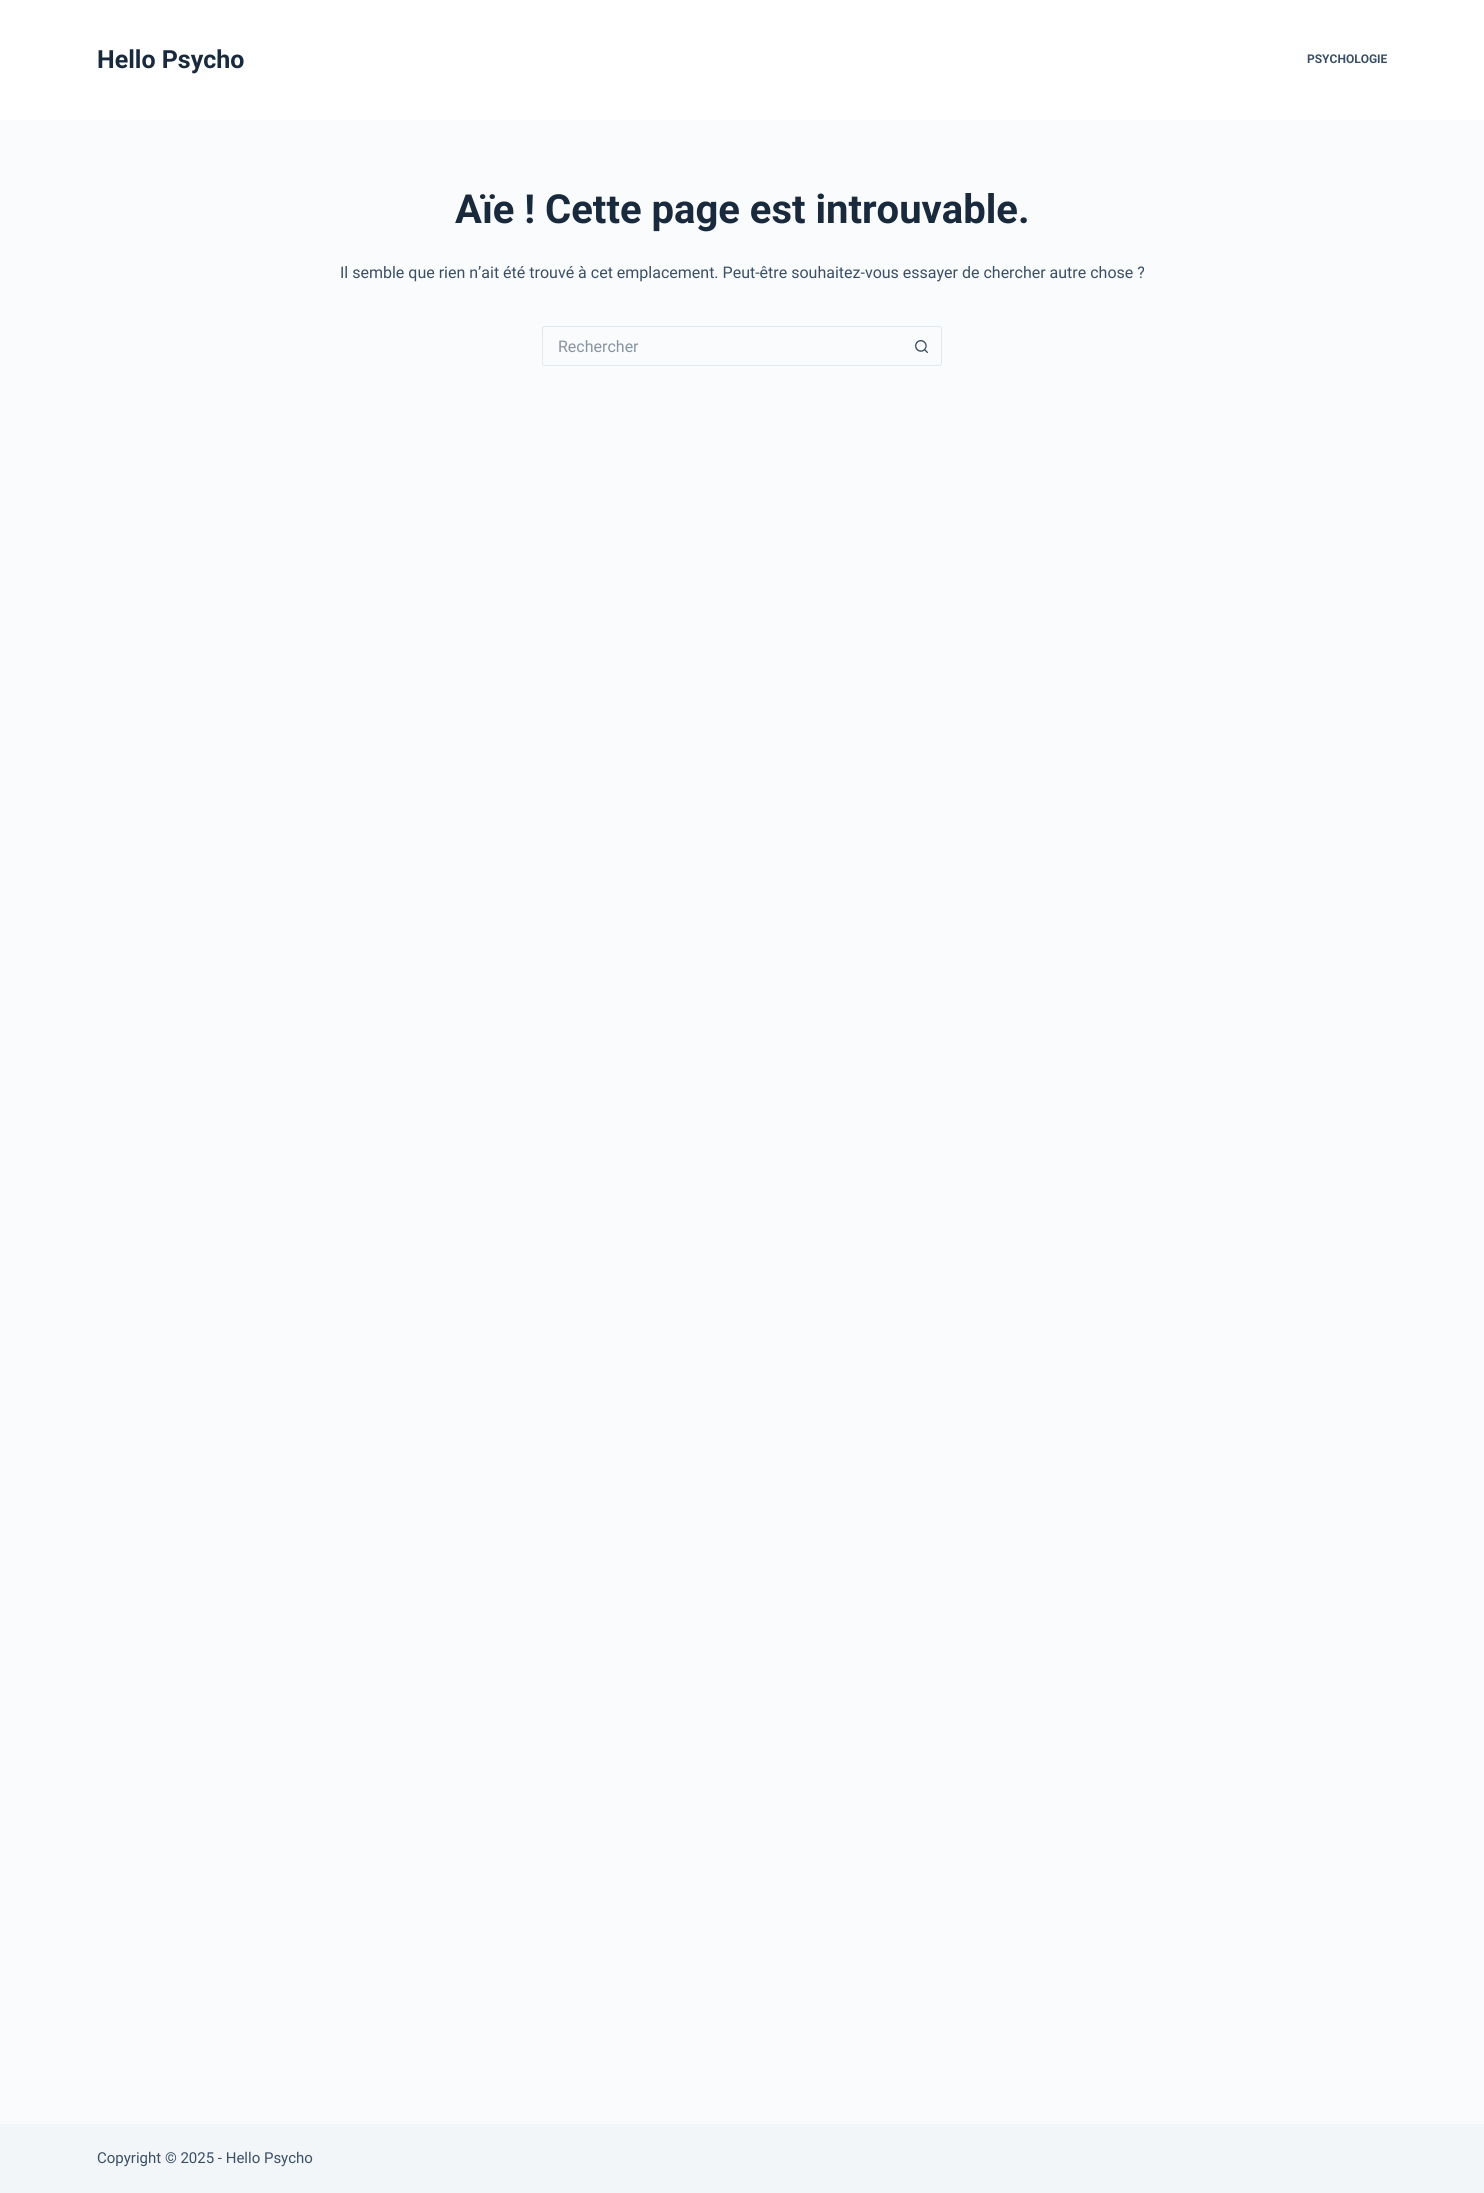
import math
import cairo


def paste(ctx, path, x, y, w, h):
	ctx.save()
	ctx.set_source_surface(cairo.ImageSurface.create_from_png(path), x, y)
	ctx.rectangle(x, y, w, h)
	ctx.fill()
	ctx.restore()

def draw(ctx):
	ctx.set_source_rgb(0.98, 0.984, 0.988)
	ctx.paint()
	ctx.set_source_rgb(1, 1, 1)
	ctx.rectangle(0, 0, 1484, 120)
	ctx.fill()
	ctx.select_font_face('Roboto', cairo.FONT_SLANT_NORMAL, cairo.FONT_WEIGHT_BOLD)
	ctx.set_font_size(25)
	ctx.set_source_rgb(0.098, 0.165, 0.239)
	ctx.move_to(97, 68)
	ctx.show_text('Hello Psycho')
	ctx.set_font_size(12)
	ctx.set_source_rgb(0.227, 0.31, 0.4)
	ctx.move_to(1307, 63)
	ctx.show_text('PSYCHOLOGIE')
	ctx.set_font_size(40)
	ctx.set_source_rgb(0.098, 0.165, 0.239)
	ctx.move_to(455, 223)
	ctx.show_text('Aïe ! Cette page est introuvable.')
	ctx.select_font_face('Roboto')
	ctx.set_font_size(16)
	ctx.set_source_rgb(0.227, 0.31, 0.4)
	ctx.move_to(340, 278)
	ctx.show_text('Il semble que rien n’ait été trouvé à cet emplacement. Peut-être souhaitez-vous essayer de chercher autre chose ?')
	ctx.set_source_rgb(0.882, 0.91, 0.929)
	ctx.set_fill_rule(cairo.FILL_RULE_EVEN_ODD)
	ctx.new_path()
	ctx.move_to(545, 326)
	ctx.line_to(902, 326)
	ctx.line_to(902, 366)
	ctx.line_to(545, 366)
	ctx.curve_to(543, 366, 542, 365, 542, 363)
	ctx.line_to(542, 329)
	ctx.curve_to(542, 327, 543, 326, 545, 326)
	ctx.close_path()
	ctx.move_to(545, 327)
	ctx.line_to(902, 327)
	ctx.line_to(902, 365)
	ctx.line_to(544, 365)
	ctx.curve_to(542, 363, 543, 358, 543, 357)
	ctx.line_to(543, 329)
	ctx.line_to(544, 327)
	ctx.close_path()
	ctx.fill()
	ctx.set_source_rgb(0.529, 0.58, 0.635)
	ctx.move_to(558, 352)
	ctx.show_text('Rechercher')
	ctx.set_source_rgb(0.882, 0.91, 0.929)
	ctx.new_path()
	ctx.move_to(902, 326)
	ctx.line_to(939, 326)
	ctx.curve_to(941, 326, 942, 327, 942, 329)
	ctx.line_to(942, 363)
	ctx.curve_to(942, 365, 941, 366, 939, 366)
	ctx.line_to(902, 366)
	ctx.close_path()
	ctx.move_to(902, 327)
	ctx.line_to(939, 327)
	ctx.curve_to(940, 327, 941, 328, 941, 329)
	ctx.line_to(941, 363)
	ctx.curve_to(941, 364, 940, 365, 939, 365)
	ctx.line_to(902, 365)
	ctx.close_path()
	ctx.fill()
	paste(ctx, 'media/1.png', 915, 340, 13, 13)
	ctx.set_source_rgb(0.949, 0.961, 0.969)
	ctx.rectangle(0, 2124, 1484, 69)
	ctx.fill()
	ctx.set_font_size(15)
	ctx.set_source_rgb(0.227, 0.31, 0.4)
	ctx.move_to(97, 2163)
	ctx.show_text('Copyright © 2025 - Hello Psycho')


surface = cairo.ImageSurface(cairo.FORMAT_RGB24, 1484, 2193)
ctx = cairo.Context(surface)
options = cairo.FontOptions()
options.set_hint_metrics(cairo.HINT_METRICS_OFF)
options.set_hint_style(cairo.HINT_STYLE_NONE)
ctx.set_font_options(options)
ctx.set_miter_limit(4)
draw(ctx)
surface.write_to_png('image.png')
